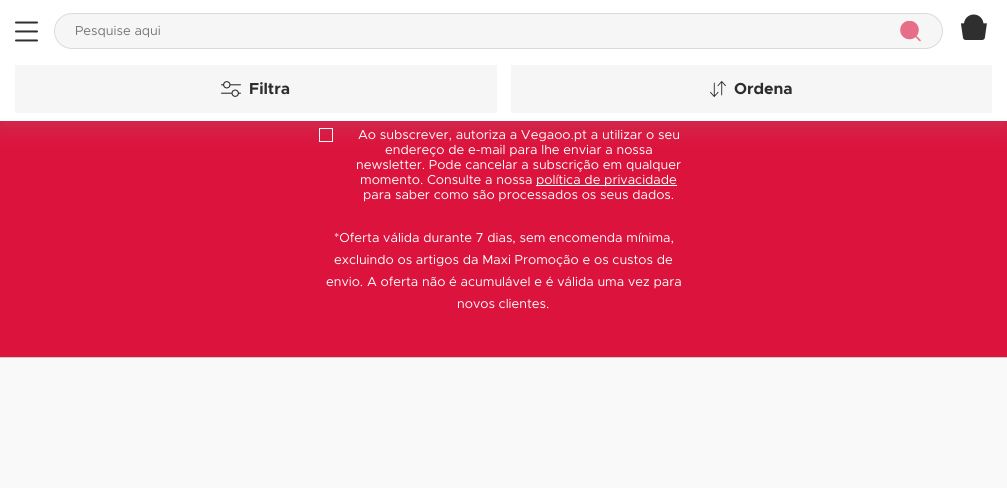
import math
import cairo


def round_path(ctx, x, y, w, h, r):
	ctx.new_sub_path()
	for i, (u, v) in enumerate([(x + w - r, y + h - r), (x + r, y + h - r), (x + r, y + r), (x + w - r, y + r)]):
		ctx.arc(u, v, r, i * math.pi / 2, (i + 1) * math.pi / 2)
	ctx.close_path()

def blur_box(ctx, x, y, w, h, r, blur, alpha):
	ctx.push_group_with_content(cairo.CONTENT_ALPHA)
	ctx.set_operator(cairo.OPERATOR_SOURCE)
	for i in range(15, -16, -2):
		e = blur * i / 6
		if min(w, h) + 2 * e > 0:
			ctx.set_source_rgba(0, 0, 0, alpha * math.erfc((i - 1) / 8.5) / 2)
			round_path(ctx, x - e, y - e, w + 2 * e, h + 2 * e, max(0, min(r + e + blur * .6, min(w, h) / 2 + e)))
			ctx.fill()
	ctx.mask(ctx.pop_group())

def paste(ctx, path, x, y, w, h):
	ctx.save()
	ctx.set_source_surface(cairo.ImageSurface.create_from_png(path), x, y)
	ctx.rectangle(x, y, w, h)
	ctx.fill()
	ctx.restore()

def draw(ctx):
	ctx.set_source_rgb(0.973, 0.976, 0.98)
	ctx.paint()
	ctx.set_source_rgb(0.863, 0.078, 0.235)
	ctx.rectangle(0, 121, 1007, 236)
	ctx.fill()
	ctx.rectangle(319.5, 128.5, 13, 13)
	ctx.set_source_rgb(1, 1, 1)
	ctx.set_line_width(1)
	ctx.stroke()
	ctx.set_source_rgb(0.584, 0.616, 0.647)
	blur_box(ctx, 0, 8, 1007, 121, 0, 12, 0.2)
	ctx.set_source_rgb(1, 1, 1)
	ctx.rectangle(0, 0, 1007, 121)
	ctx.fill()
	paste(ctx, 'media/1.png', 15, 21, 23, 21)
	ctx.set_source_rgb(0.961, 0.961, 0.961)
	round_path(ctx, 54.5, 13.5, 888, 35, 17.5)
	ctx.fill_preserve()
	ctx.set_source_rgb(0.859, 0.859, 0.859)
	ctx.stroke()
	ctx.select_font_face('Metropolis')
	ctx.set_font_size(13)
	ctx.set_source_rgb(0.459, 0.459, 0.459)
	ctx.move_to(75, 35)
	ctx.show_text('Pesquise aqui')
	ctx.set_source_rgb(0.902, 0.431, 0.525)
	ctx.new_path()
	ctx.arc(909.5, 30, 8.5, 0, 2 * math.pi)
	ctx.fill()
	ctx.save()
	ctx.rectangle(900, 21, 23, 23)
	ctx.clip()
	ctx.arc(909.5, 30, 8.5, 0, 2 * math.pi)
	ctx.set_line_width(1.6)
	ctx.stroke()
	ctx.restore()
	ctx.new_path()
	ctx.move_to(920, 40.5)
	ctx.line_to(915.5, 36)
	ctx.set_line_width(1.6)
	ctx.set_line_cap(cairo.LINE_CAP_ROUND)
	ctx.set_line_join(cairo.LINE_JOIN_ROUND)
	ctx.stroke()
	paste(ctx, 'media/2.png', 961, 14, 26, 26)
	ctx.set_source_rgb(0.961, 0.961, 0.961)
	ctx.rectangle(15, 65, 482, 48)
	ctx.fill()
	paste(ctx, 'media/3.png', 221, 81, 20, 16)
	ctx.select_font_face('Metropolis', cairo.FONT_SLANT_NORMAL, cairo.FONT_WEIGHT_BOLD)
	ctx.set_font_size(16)
	ctx.set_source_rgb(0.176, 0.176, 0.176)
	ctx.move_to(249, 94)
	ctx.show_text('Filtra')
	ctx.set_source_rgb(0.961, 0.961, 0.961)
	ctx.rectangle(511, 65, 481, 48)
	ctx.fill()
	paste(ctx, 'media/4.png', 710, 81, 16, 16)
	ctx.set_source_rgb(0.176, 0.176, 0.176)
	ctx.move_to(734, 94)
	ctx.show_text('Ordena')
	ctx.select_font_face('Metropolis')
	ctx.set_font_size(13)
	ctx.set_source_rgb(1, 1, 1)
	for x, y, s in [
		(358, 139, 'Ao subscrever, autoriza a Vegaoo.pt a utilizar o seu'),
		(385, 154, 'endereço de e-mail para lhe enviar a nossa'),
		(356, 169, 'newsletter. Pode cancelar a subscrição em qualquer'),
		(360, 184, 'momento. Consulte a nossa'),
	]:
		ctx.move_to(x, y)
		ctx.show_text(s)
	ctx.rectangle(536, 185, 141, 1)
	ctx.fill()
	for x, y, s in [
		(536, 184, 'política de privacidade'),
		(363, 199, 'para saber como são processados os seus dados.'),
		(334, 242, '*Oferta válida durante 7 dias, sem encomenda mínima,'),
		(334, 264, 'excluindo os artigos da Maxi Promoção e os custos de'),
		(326, 286, 'envio. A oferta não é acumulável e é válida uma vez para'),
		(457, 308, 'novos clientes.'),
	]:
		ctx.move_to(x, y)
		ctx.show_text(s)
	ctx.set_source_rgb(0.796, 0.796, 0.796)
	ctx.rectangle(0, 357, 1007, 1)
	ctx.fill()


surface = cairo.ImageSurface(cairo.FORMAT_RGB24, 1007, 488)
ctx = cairo.Context(surface)
options = cairo.FontOptions()
options.set_hint_metrics(cairo.HINT_METRICS_OFF)
options.set_hint_style(cairo.HINT_STYLE_NONE)
ctx.set_font_options(options)
ctx.set_miter_limit(4)
draw(ctx)
surface.write_to_png('image.png')
